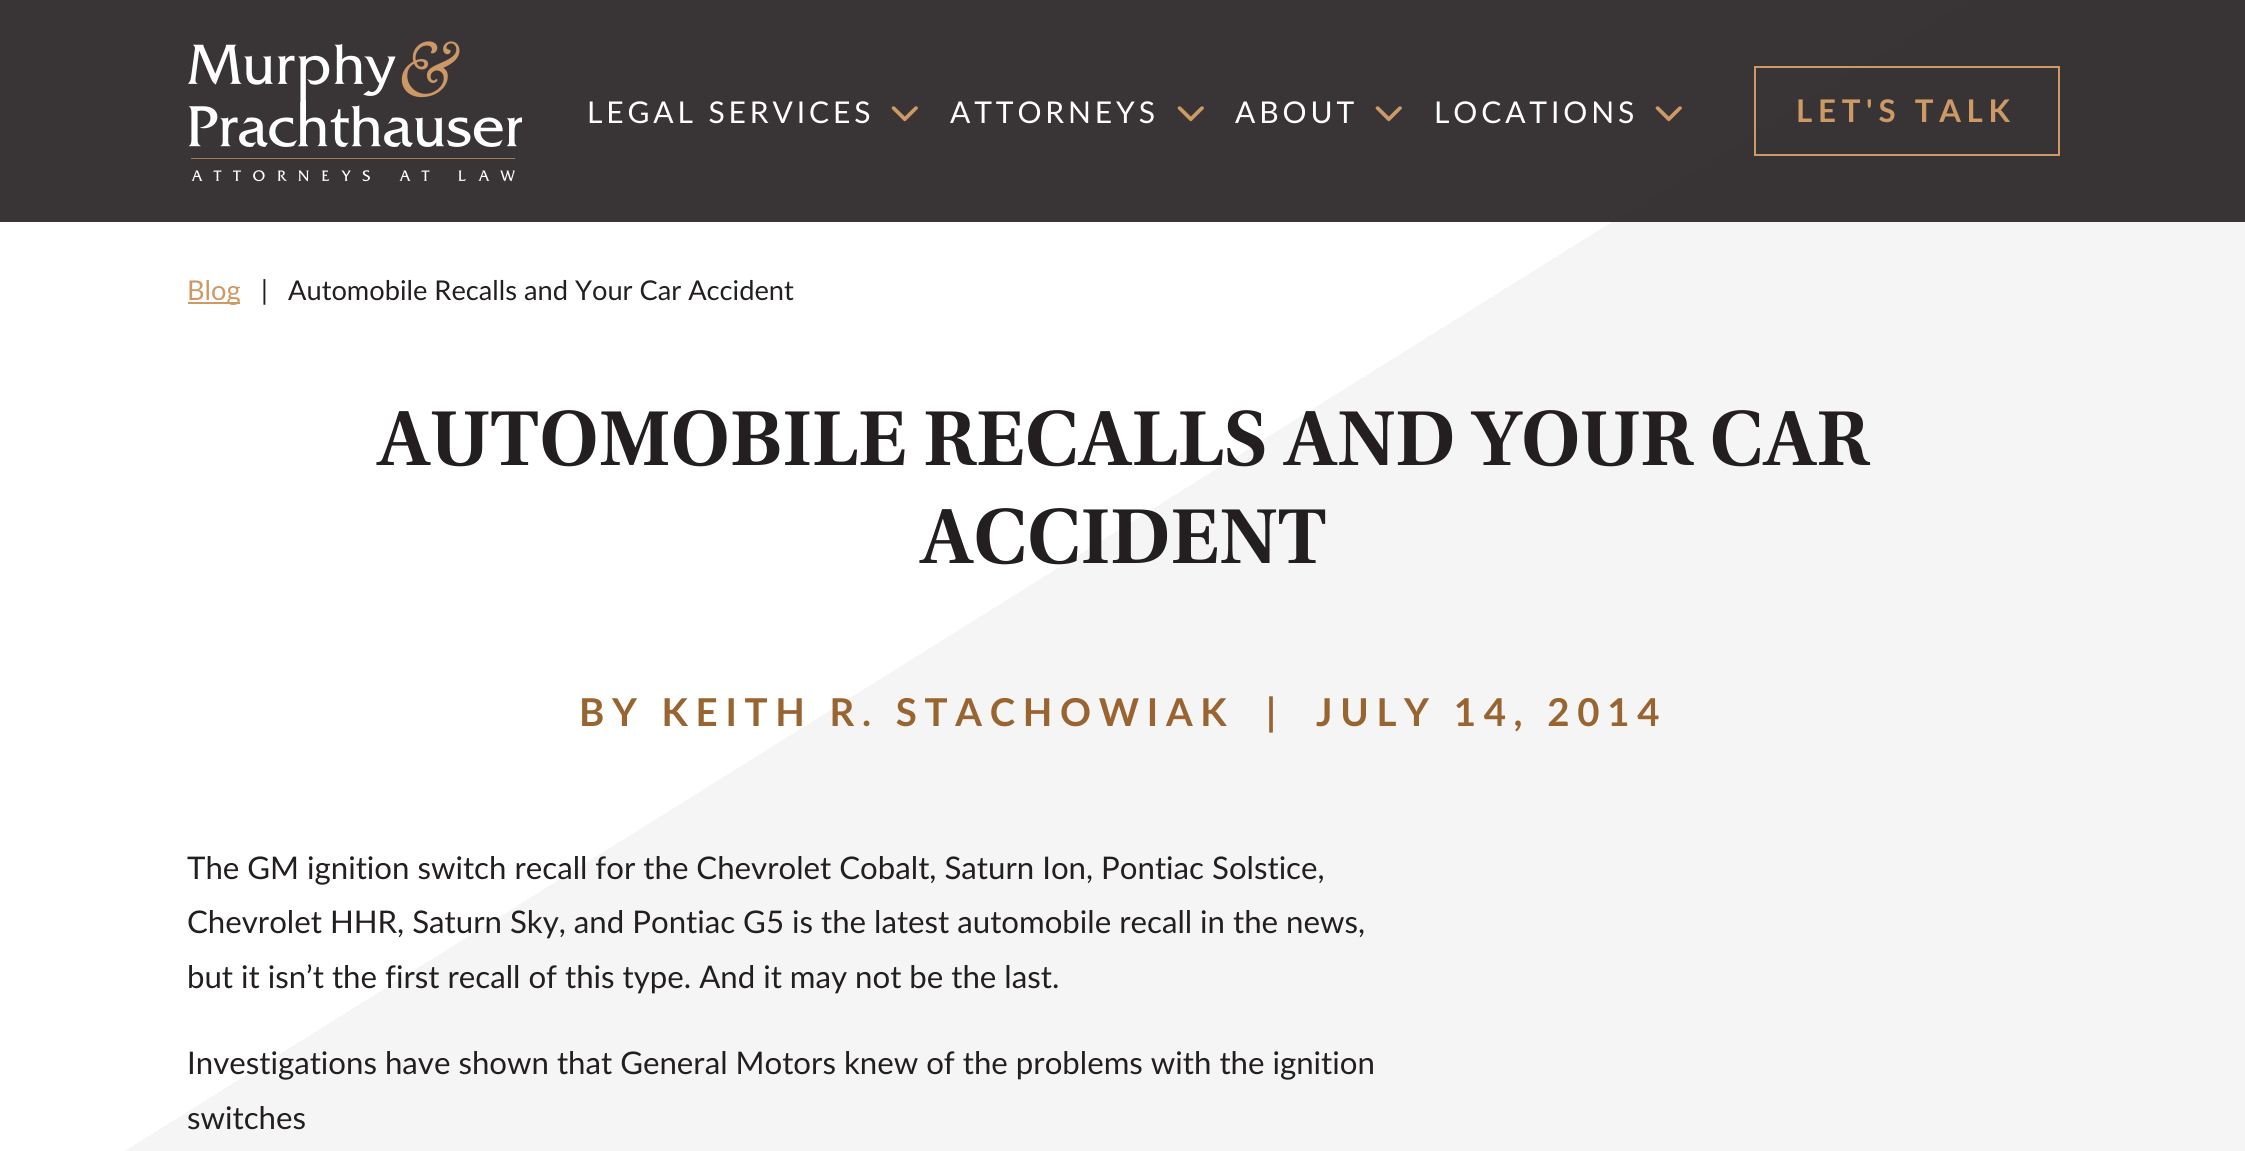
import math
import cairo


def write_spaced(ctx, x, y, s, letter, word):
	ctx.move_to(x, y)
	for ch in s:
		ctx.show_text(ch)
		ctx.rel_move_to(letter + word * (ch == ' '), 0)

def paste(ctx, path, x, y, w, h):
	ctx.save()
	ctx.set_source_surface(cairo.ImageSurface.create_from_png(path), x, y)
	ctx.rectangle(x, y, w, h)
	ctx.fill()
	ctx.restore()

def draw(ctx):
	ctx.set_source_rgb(1, 1, 1)
	ctx.paint()
	gradient = cairo.LinearGradient(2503, 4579, -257, 161)
	gradient.add_color_stop_rgba(0, 0.22, 0.204, 0.208, 1)
	gradient.add_color_stop_rgba(0.8, 0.22, 0.204, 0.208, 1)
	gradient.add_color_stop_rgba(0.8, 0.224, 0.208, 0.212, 1)
	gradient.add_color_stop_rgba(1, 0.224, 0.208, 0.212, 1)
	ctx.set_source(gradient)
	ctx.rectangle(0, 0, 2245, 222)
	ctx.fill()
	paste(ctx, 'media/1.png', 188, 41, 334, 141)
	ctx.select_font_face('Lato')
	ctx.set_font_size(30)
	ctx.set_source_rgb(1, 1, 1)
	write_spaced(ctx, 587, 123, 'LEGAL SERVICES', 3.9, 0)
	paste(ctx, 'media/2.png', 891, 106, 27, 16)
	write_spaced(ctx, 950, 123, 'ATTORNEYS', 3.9, 0)
	paste(ctx, 'media/2.png', 1177, 106, 27, 16)
	write_spaced(ctx, 1235, 123, 'ABOUT', 3.9, 0)
	paste(ctx, 'media/3.png', 1375, 106, 27, 16)
	write_spaced(ctx, 1434, 123, 'LOCATIONS', 3.9, 0)
	paste(ctx, 'media/2.png', 1655, 106, 27, 16)
	ctx.rectangle(1755, 67, 304, 88)
	ctx.set_source_rgb(0.804, 0.604, 0.4)
	ctx.stroke()
	ctx.select_font_face('Lato', cairo.FONT_SLANT_NORMAL, cairo.FONT_WEIGHT_BOLD)
	ctx.set_font_size(31.2)
	write_spaced(ctx, 1796, 122, 'LET\'S TALK', 5.75, 0)
	gradient = cairo.LinearGradient(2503, 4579, -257, 161)
	gradient.add_color_stop_rgba(0, 0.961, 0.961, 0.961, 1)
	gradient.add_color_stop_rgba(0.8, 0.961, 0.961, 0.961, 1)
	gradient.add_color_stop_rgba(0.8, 1, 1, 1, 1)
	gradient.add_color_stop_rgba(1, 1, 1, 1, 1)
	ctx.set_source(gradient)
	ctx.rectangle(125, 222, 2120, 929)
	ctx.fill()
	ctx.set_source_rgb(0.804, 0.604, 0.4)
	ctx.rectangle(188, 302, 52, 2)
	ctx.fill()
	ctx.select_font_face('Lato')
	ctx.set_font_size(27.25)
	ctx.move_to(187, 300)
	ctx.show_text('Blog')
	ctx.set_source_rgb(0.137, 0.122, 0.125)
	ctx.move_to(261, 300)
	ctx.show_text('|')
	ctx.move_to(288, 300)
	ctx.show_text('Automobile Recalls and Your Car Accident')
	ctx.select_font_face('Utopia SemiBold')
	ctx.set_font_size(82)
	ctx.move_to(377, 465)
	ctx.show_text('AUTOMOBILE RECALLS AND YOUR CAR')
	ctx.move_to(920, 563)
	ctx.show_text('ACCIDENT')
	ctx.select_font_face('Lato', cairo.FONT_SLANT_NORMAL, cairo.FONT_WEIGHT_BOLD)
	ctx.set_font_size(38.4)
	ctx.set_source_rgb(0.596, 0.396, 0.196)
	for x, y, s in [
		(579, 726, 'BY KEITH R. STACHOWIAK'),
		(1266, 726, '|'),
		(1316, 726, 'JULY 14, 2014'),
	]:
		write_spaced(ctx, x, y, s, 7.7, 0)
	ctx.select_font_face('Lato')
	ctx.set_font_size(31.2)
	ctx.set_source_rgb(0.137, 0.122, 0.125)
	for x, y, s in [
		(187, 879, 'The GM ignition switch recall for the Chevrolet Cobalt, Saturn Ion, Pontiac Solstice,'),
		(187, 933, 'Chevrolet HHR, Saturn Sky, and Pontiac G5 is the latest automobile recall in the news,'),
		(187, 988, 'but it isn’t the first recall of this type. And it may not be the last.'),
		(187, 1074, 'Investigations have shown that General Motors knew of the problems with the ignition'),
		(187, 1129, 'switches'),
	]:
		ctx.move_to(x, y)
		ctx.show_text(s)


surface = cairo.ImageSurface(cairo.FORMAT_RGB24, 2245, 1151)
ctx = cairo.Context(surface)
options = cairo.FontOptions()
options.set_hint_metrics(cairo.HINT_METRICS_OFF)
options.set_hint_style(cairo.HINT_STYLE_NONE)
ctx.set_font_options(options)
ctx.set_miter_limit(4)
draw(ctx)
surface.write_to_png('image.png')
